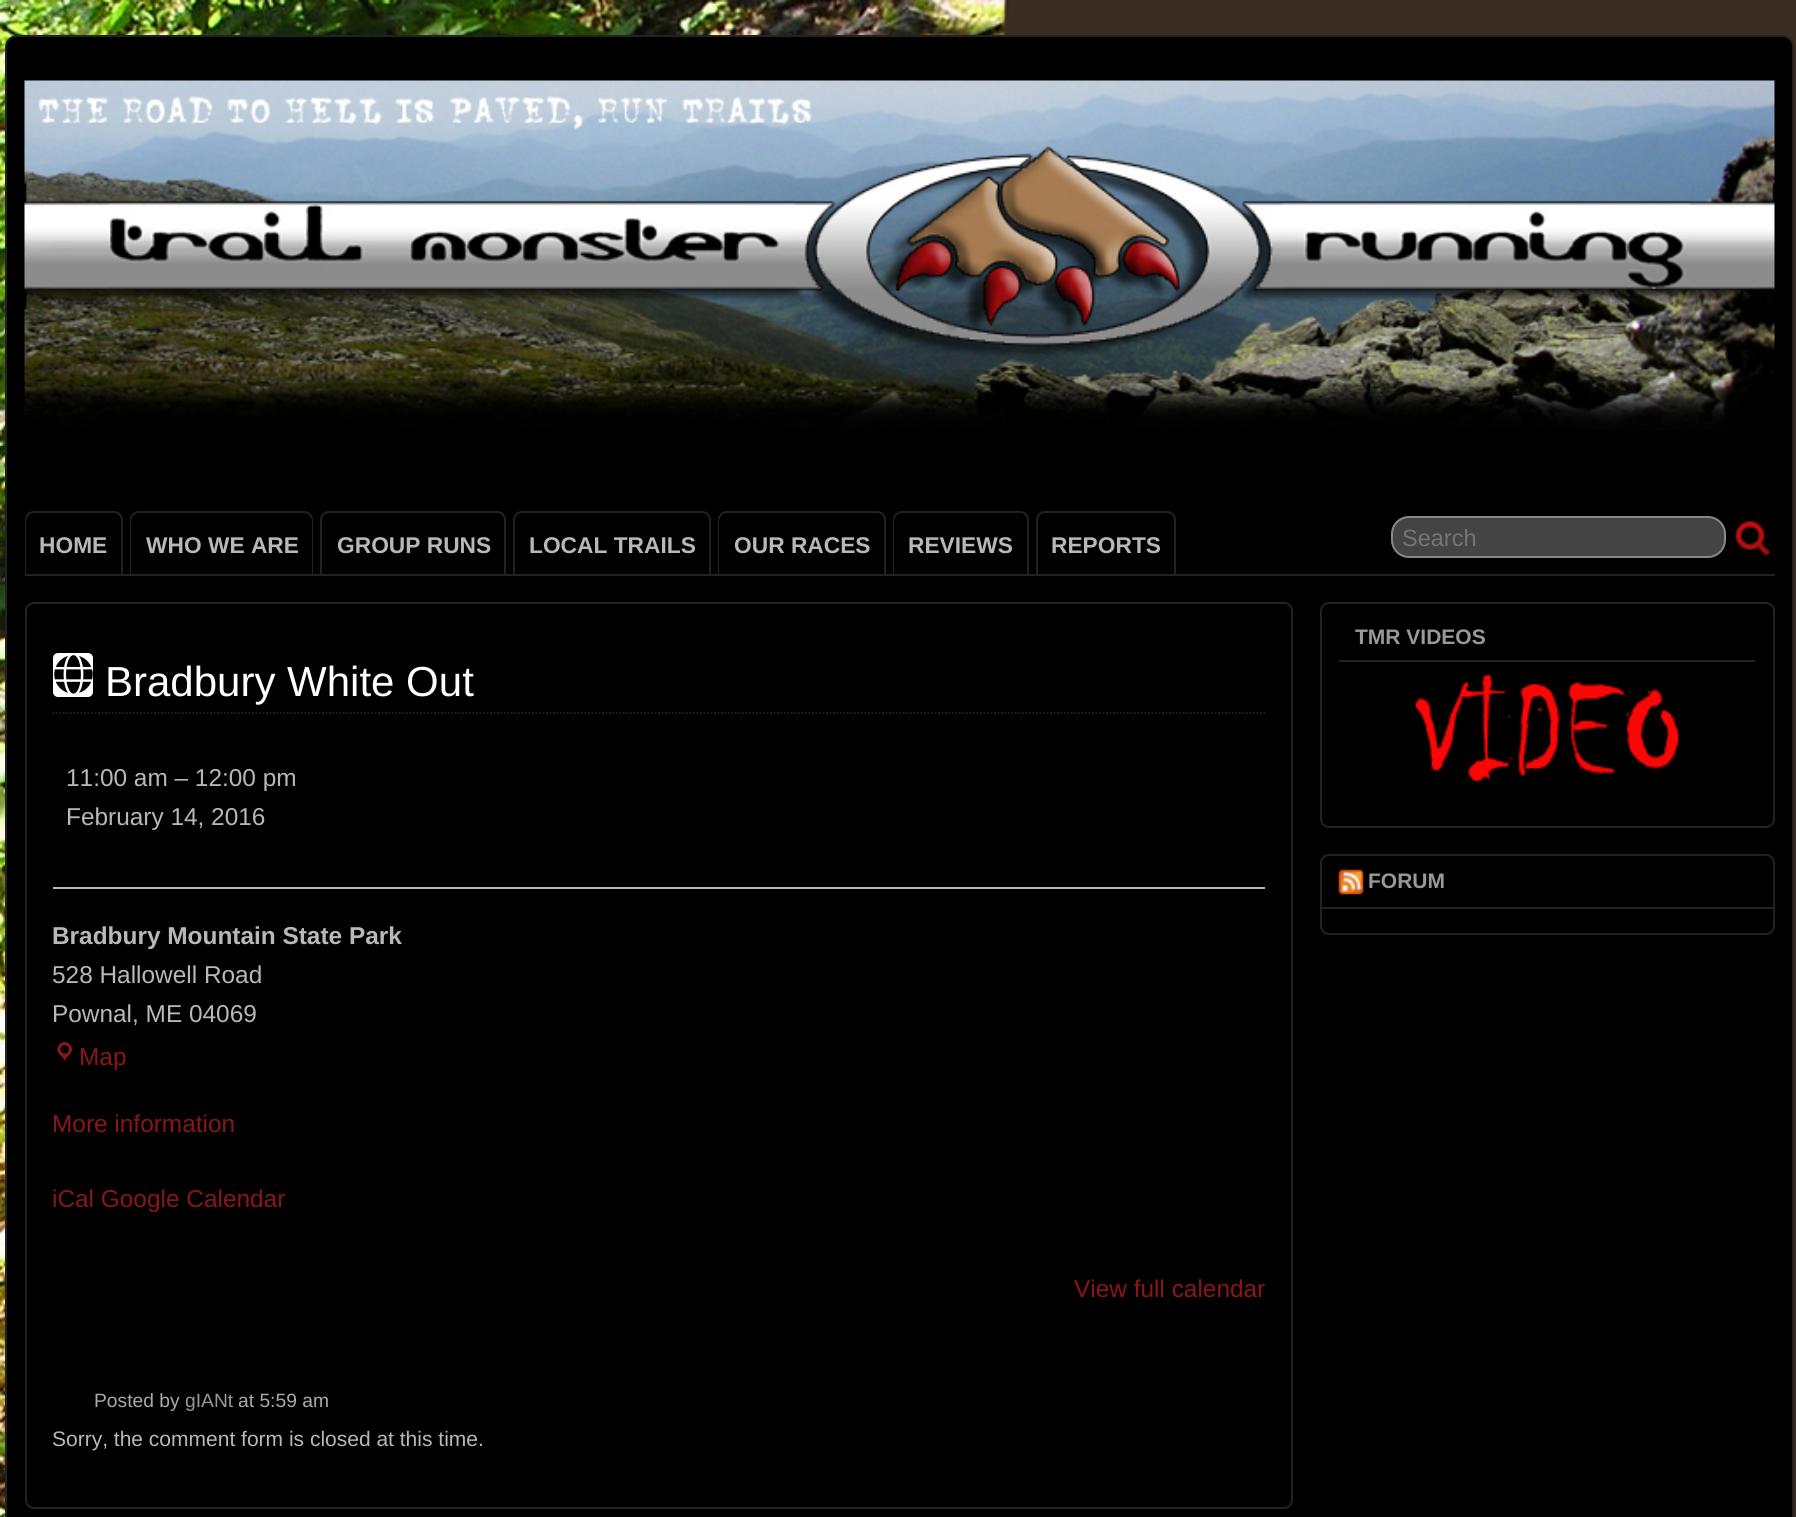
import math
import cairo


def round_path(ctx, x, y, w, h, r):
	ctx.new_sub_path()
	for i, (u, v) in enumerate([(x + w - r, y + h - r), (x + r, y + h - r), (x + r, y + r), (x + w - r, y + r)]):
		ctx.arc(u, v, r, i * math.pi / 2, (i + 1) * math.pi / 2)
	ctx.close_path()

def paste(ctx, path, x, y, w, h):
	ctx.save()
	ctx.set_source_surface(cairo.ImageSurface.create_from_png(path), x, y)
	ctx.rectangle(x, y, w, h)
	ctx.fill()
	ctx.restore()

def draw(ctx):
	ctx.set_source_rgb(1, 1, 1)
	ctx.paint()
	paste(ctx, 'media/1.png', 0, 0, 1796, 1517)
	ctx.set_source_rgb(0, 0, 0)
	round_path(ctx, 6, 36, 1787, 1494, 11)
	ctx.fill_preserve()
	ctx.set_source_rgb(0.133, 0.133, 0.133)
	ctx.stroke()
	paste(ctx, 'media/2.png', 24, 80, 1751, 350)
	ctx.rectangle(123, 574, 1652, 2)
	ctx.fill()
	ctx.new_path()
	ctx.move_to(34, 512)
	ctx.line_to(114, 512)
	ctx.curve_to(118.5, 512, 122, 515.5, 122, 520)
	ctx.line_to(122, 575)
	ctx.line_to(26, 575)
	ctx.line_to(26, 520)
	ctx.curve_to(26, 515.5, 29.5, 512, 34, 512)
	ctx.close_path()
	ctx.stroke()
	ctx.set_source_rgb(0, 0, 0)
	ctx.new_path()
	ctx.move_to(35, 513)
	ctx.line_to(112, 513)
	ctx.curve_to(117, 513, 121, 517, 121, 522)
	ctx.line_to(121, 574)
	ctx.line_to(26, 574)
	ctx.line_to(26, 522)
	ctx.curve_to(26, 517, 30, 513, 35, 513)
	ctx.close_path()
	ctx.fill()
	ctx.select_font_face('Liberation Sans', cairo.FONT_SLANT_NORMAL, cairo.FONT_WEIGHT_BOLD)
	ctx.set_font_size(22.75)
	ctx.set_source_rgb(0.722, 0.722, 0.722)
	ctx.move_to(39, 553)
	ctx.show_text('HOME')
	ctx.new_path()
	ctx.move_to(139, 512)
	ctx.line_to(304, 512)
	ctx.curve_to(308.5, 512, 312, 515.5, 312, 520)
	ctx.line_to(312, 575)
	ctx.line_to(131, 575)
	ctx.line_to(131, 520)
	ctx.curve_to(131, 515.5, 134.5, 512, 139, 512)
	ctx.close_path()
	ctx.set_source_rgb(0.133, 0.133, 0.133)
	ctx.stroke()
	ctx.set_source_rgb(0, 0, 0)
	ctx.new_path()
	ctx.move_to(140, 513)
	ctx.line_to(303, 513)
	ctx.curve_to(308, 513, 312, 517, 312, 522)
	ctx.line_to(312, 574)
	ctx.line_to(131, 574)
	ctx.line_to(131, 522)
	ctx.curve_to(131, 517, 135, 513, 140, 513)
	ctx.close_path()
	ctx.fill()
	ctx.set_source_rgb(0.722, 0.722, 0.722)
	ctx.move_to(146, 553)
	ctx.show_text('WHO WE ARE')
	ctx.new_path()
	ctx.move_to(329, 512)
	ctx.line_to(497, 512)
	ctx.curve_to(501.5, 512, 505, 515.5, 505, 520)
	ctx.line_to(505, 575)
	ctx.line_to(321, 575)
	ctx.line_to(321, 520)
	ctx.curve_to(321, 515.5, 324.5, 512, 329, 512)
	ctx.close_path()
	ctx.set_source_rgb(0.133, 0.133, 0.133)
	ctx.stroke()
	ctx.set_source_rgb(0.722, 0.722, 0.722)
	ctx.move_to(337, 553)
	ctx.show_text('GROUP RUNS')
	ctx.new_path()
	ctx.move_to(522, 512)
	ctx.line_to(702, 512)
	ctx.curve_to(706.5, 512, 710, 515.5, 710, 520)
	ctx.line_to(710, 575)
	ctx.line_to(514, 575)
	ctx.line_to(514, 520)
	ctx.curve_to(514, 515.5, 517.5, 512, 522, 512)
	ctx.close_path()
	ctx.set_source_rgb(0.133, 0.133, 0.133)
	ctx.stroke()
	ctx.set_source_rgb(0.722, 0.722, 0.722)
	ctx.move_to(529, 553)
	ctx.show_text('LOCAL TRAILS')
	ctx.new_path()
	ctx.move_to(727, 512)
	ctx.line_to(877, 512)
	ctx.curve_to(881.5, 512, 885, 515.5, 885, 520)
	ctx.line_to(885, 575)
	ctx.line_to(719, 575)
	ctx.line_to(719, 520)
	ctx.curve_to(719, 515.5, 722.5, 512, 727, 512)
	ctx.close_path()
	ctx.set_source_rgb(0.133, 0.133, 0.133)
	ctx.stroke()
	ctx.set_source_rgb(0, 0, 0)
	ctx.new_path()
	ctx.move_to(728, 513)
	ctx.line_to(875, 513)
	ctx.curve_to(880, 513, 884, 517, 884, 522)
	ctx.line_to(884, 574)
	ctx.line_to(719, 574)
	ctx.line_to(719, 522)
	ctx.curve_to(719, 517, 723, 513, 728, 513)
	ctx.close_path()
	ctx.fill()
	ctx.set_source_rgb(0.722, 0.722, 0.722)
	ctx.move_to(734, 553)
	ctx.show_text('OUR RACES')
	ctx.new_path()
	ctx.move_to(902, 512)
	ctx.line_to(1020, 512)
	ctx.curve_to(1024.5, 512, 1028, 515.5, 1028, 520)
	ctx.line_to(1028, 575)
	ctx.line_to(894, 575)
	ctx.line_to(894, 520)
	ctx.curve_to(894, 515.5, 897.5, 512, 902, 512)
	ctx.close_path()
	ctx.set_source_rgb(0.133, 0.133, 0.133)
	ctx.stroke()
	ctx.set_source_rgb(0, 0, 0)
	ctx.new_path()
	ctx.move_to(903, 513)
	ctx.line_to(1018, 513)
	ctx.curve_to(1023, 513, 1027, 517, 1027, 522)
	ctx.line_to(1027, 574)
	ctx.line_to(894, 574)
	ctx.line_to(894, 522)
	ctx.curve_to(894, 517, 898, 513, 903, 513)
	ctx.close_path()
	ctx.fill()
	ctx.set_source_rgb(0.722, 0.722, 0.722)
	ctx.move_to(908, 553)
	ctx.show_text('REVIEWS')
	ctx.new_path()
	ctx.move_to(1045, 512)
	ctx.line_to(1167, 512)
	ctx.curve_to(1171.5, 512, 1175, 515.5, 1175, 520)
	ctx.line_to(1175, 575)
	ctx.line_to(1037, 575)
	ctx.line_to(1037, 520)
	ctx.curve_to(1037, 515.5, 1040.5, 512, 1045, 512)
	ctx.close_path()
	ctx.set_source_rgb(0.133, 0.133, 0.133)
	ctx.stroke()
	ctx.set_source_rgb(0.722, 0.722, 0.722)
	ctx.move_to(1051, 553)
	ctx.show_text('REPORTS')
	ctx.set_source_rgb(0.267, 0.267, 0.267)
	round_path(ctx, 1392, 517, 333, 40, 17)
	ctx.fill_preserve()
	ctx.set_source_rgb(0.533, 0.533, 0.533)
	ctx.stroke()
	ctx.select_font_face('Liberation Sans')
	ctx.set_font_size(23.5)
	ctx.set_source_rgb(0.459, 0.459, 0.459)
	ctx.move_to(1402, 546)
	ctx.show_text('Search')
	paste(ctx, 'media/3.png', 1735, 521, 36, 35)
	round_path(ctx, 26, 603, 1266, 905, 8)
	ctx.set_source_rgb(0.133, 0.133, 0.133)
	ctx.stroke()
	ctx.new_path()
	ctx.move_to(52.5, 713)
	ctx.line_to(1265, 713)
	ctx.set_line_width(1.8)
	ctx.set_dash([1.75, 1.75])
	ctx.stroke()
	ctx.set_source_rgb(1, 1, 1)
	round_path(ctx, 53, 653, 40, 44, 5)
	ctx.fill()
	paste(ctx, 'media/4.png', 54, 655, 39, 39)
	ctx.set_font_size(42)
	ctx.move_to(105, 696)
	ctx.show_text('Bradbury White Out')
	ctx.set_source_rgb(0.722, 0.722, 0.722)
	ctx.rectangle(53, 887, 1212, 2)
	ctx.fill()
	ctx.set_font_size(24.4)
	ctx.move_to(66, 786)
	ctx.show_text('11:00 am – 12:00 pm')
	ctx.move_to(66, 825)
	ctx.show_text('February 14, 2016')
	ctx.select_font_face('Liberation Sans', cairo.FONT_SLANT_NORMAL, cairo.FONT_WEIGHT_BOLD)
	ctx.move_to(52, 944)
	ctx.show_text('Bradbury Mountain State Park')
	ctx.select_font_face('Liberation Sans')
	ctx.move_to(52, 983)
	ctx.show_text('528 Hallowell Road')
	ctx.move_to(52, 1022)
	ctx.show_text('Pownal, ME 04069')
	paste(ctx, 'media/5.png', 57, 1042, 15, 19)
	ctx.set_source_rgb(0.541, 0.09, 0.09)
	for x, y, s in [
		(79, 1065, 'Map'),
		(52, 1132, 'More information'),
		(52, 1207, 'iCal Google Calendar'),
		(1074, 1297, 'View full calendar'),
	]:
		ctx.move_to(x, y)
		ctx.show_text(s)
	ctx.set_font_size(19.25)
	ctx.set_source_rgb(0.667, 0.667, 0.667)
	ctx.move_to(94, 1407)
	ctx.show_text('Posted by')
	ctx.set_source_rgb(0.6, 0.6, 0.6)
	ctx.move_to(185, 1407)
	ctx.show_text('gIANt')
	ctx.set_source_rgb(0.667, 0.667, 0.667)
	ctx.move_to(238, 1407)
	ctx.show_text('at 5:59 am')
	ctx.set_font_size(21)
	ctx.set_source_rgb(0.722, 0.722, 0.722)
	ctx.move_to(52, 1446)
	ctx.show_text('Sorry, the comment form is closed at this time.')
	round_path(ctx, 1321, 603, 453, 224, 8)
	ctx.set_source_rgb(0.133, 0.133, 0.133)
	ctx.set_line_width(2)
	ctx.set_dash([])
	ctx.stroke()
	ctx.rectangle(1339, 660, 416, 2)
	ctx.fill()
	ctx.select_font_face('Liberation Sans', cairo.FONT_SLANT_NORMAL, cairo.FONT_WEIGHT_BOLD)
	ctx.set_source_rgb(0.6, 0.6, 0.6)
	ctx.move_to(1355, 644)
	ctx.show_text('TMR VIDEOS')
	paste(ctx, 'media/6.png', 1415, 673, 264, 110)
	round_path(ctx, 1321, 855, 453, 79, 8)
	ctx.set_source_rgb(0.133, 0.133, 0.133)
	ctx.stroke()
	ctx.rectangle(1321, 907, 452, 2)
	ctx.fill()
	paste(ctx, 'media/7.png', 1338, 869, 26, 26)
	ctx.set_source_rgb(0.6, 0.6, 0.6)
	ctx.move_to(1368, 888)
	ctx.show_text('FORUM')


surface = cairo.ImageSurface(cairo.FORMAT_RGB24, 1796, 1517)
ctx = cairo.Context(surface)
options = cairo.FontOptions()
options.set_hint_metrics(cairo.HINT_METRICS_OFF)
options.set_hint_style(cairo.HINT_STYLE_NONE)
ctx.set_font_options(options)
ctx.set_miter_limit(4)
draw(ctx)
surface.write_to_png('image.png')
